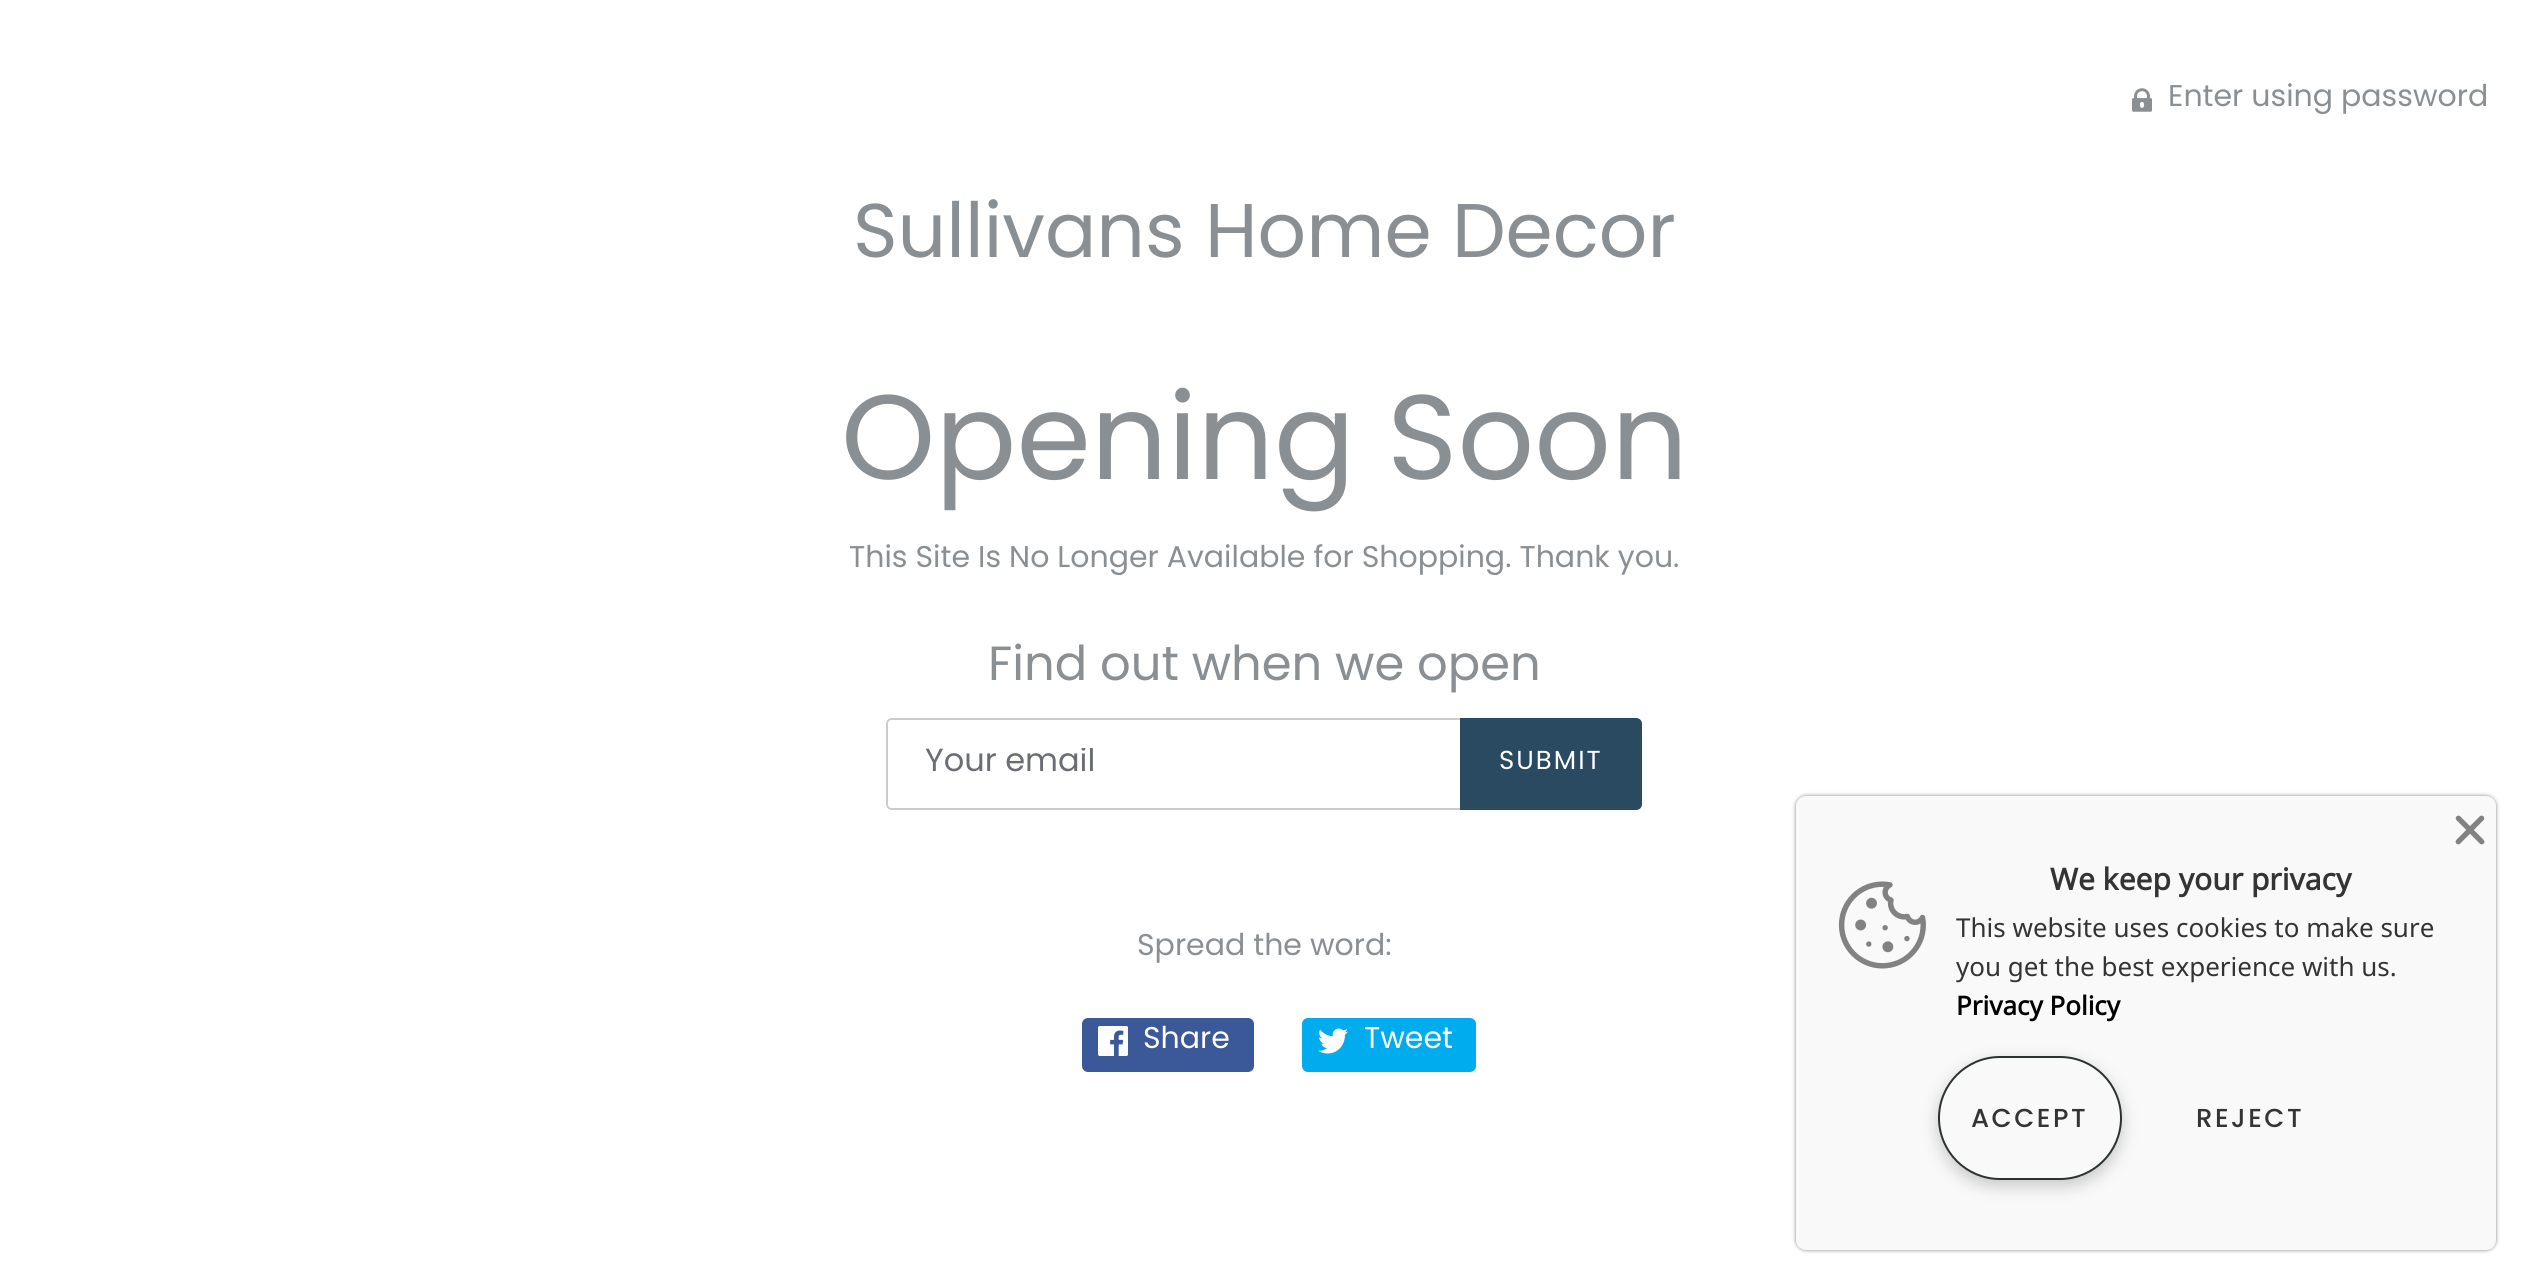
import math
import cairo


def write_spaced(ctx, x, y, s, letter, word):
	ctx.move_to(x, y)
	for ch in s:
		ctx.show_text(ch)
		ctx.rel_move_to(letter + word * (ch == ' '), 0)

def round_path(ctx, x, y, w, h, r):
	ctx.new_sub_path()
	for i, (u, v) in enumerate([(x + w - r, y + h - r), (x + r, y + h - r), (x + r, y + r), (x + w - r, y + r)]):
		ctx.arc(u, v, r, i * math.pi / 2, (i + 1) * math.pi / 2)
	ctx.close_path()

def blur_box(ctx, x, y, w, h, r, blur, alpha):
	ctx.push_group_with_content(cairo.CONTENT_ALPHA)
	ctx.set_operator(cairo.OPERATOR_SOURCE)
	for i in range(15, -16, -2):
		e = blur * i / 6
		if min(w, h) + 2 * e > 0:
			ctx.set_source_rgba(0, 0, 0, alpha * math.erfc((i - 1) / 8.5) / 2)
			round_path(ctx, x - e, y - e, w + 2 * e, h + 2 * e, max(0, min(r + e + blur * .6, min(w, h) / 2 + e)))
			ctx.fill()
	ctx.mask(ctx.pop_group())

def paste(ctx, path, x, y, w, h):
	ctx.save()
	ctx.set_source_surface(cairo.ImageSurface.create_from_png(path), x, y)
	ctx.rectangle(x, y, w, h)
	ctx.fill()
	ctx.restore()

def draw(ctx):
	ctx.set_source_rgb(1, 1, 1)
	ctx.paint()
	paste(ctx, 'media/1.png', 2132, 88, 20, 24)
	ctx.select_font_face('Poppins')
	ctx.set_font_size(30)
	ctx.set_source_rgb(0.541, 0.561, 0.576)
	ctx.move_to(2168, 106)
	ctx.show_text('Enter using password')
	ctx.set_font_size(76)
	ctx.move_to(853, 257)
	ctx.show_text('Sullivans Home Decor')
	ctx.set_font_size(120)
	ctx.move_to(841, 479)
	ctx.show_text('Opening Soon')
	ctx.set_font_size(30)
	ctx.move_to(849, 567)
	ctx.show_text('This Site Is No Longer Available for Shopping. Thank you.')
	ctx.set_font_size(48)
	ctx.move_to(988, 680)
	ctx.show_text('Find out when we open')
	ctx.new_path()
	ctx.move_to(892, 719)
	ctx.line_to(1461, 719)
	ctx.line_to(1461, 809)
	ctx.line_to(892, 809)
	ctx.curve_to(889, 809, 887, 807, 887, 804)
	ctx.line_to(887, 724)
	ctx.curve_to(887, 721, 889, 719, 892, 719)
	ctx.close_path()
	ctx.set_source_rgb(0.8, 0.8, 0.8)
	ctx.stroke()
	ctx.save()
	ctx.rectangle(924, 748, 500, 32)
	ctx.clip()
	ctx.set_font_size(32)
	ctx.set_source_rgb(0.416, 0.427, 0.455)
	ctx.move_to(925, 771)
	ctx.show_text('Your email')
	ctx.restore()
	ctx.set_source_rgb(0.165, 0.29, 0.384)
	ctx.new_path()
	ctx.move_to(1461, 719)
	ctx.line_to(1636, 719)
	ctx.curve_to(1639, 719, 1641, 721, 1641, 724)
	ctx.line_to(1641, 804)
	ctx.curve_to(1641, 807, 1639, 809, 1636, 809)
	ctx.line_to(1461, 809)
	ctx.close_path()
	ctx.fill_preserve()
	ctx.stroke()
	ctx.set_font_size(26)
	ctx.set_source_rgb(1, 1, 1)
	write_spaced(ctx, 1499, 769, 'SUBMIT', 2, 0)
	ctx.set_font_size(30)
	ctx.set_source_rgb(0.541, 0.561, 0.576)
	ctx.move_to(1137, 955)
	ctx.show_text('Spread the word:')
	ctx.set_source_rgb(0.231, 0.349, 0.596)
	round_path(ctx, 1082, 1018, 172, 54, 6)
	ctx.fill()
	paste(ctx, 'media/2.png', 1098, 1026, 30, 30)
	ctx.set_source_rgb(1, 1, 1)
	ctx.move_to(1143, 1048)
	ctx.show_text('Share')
	ctx.set_source_rgb(0, 0.675, 0.929)
	round_path(ctx, 1302, 1018, 174, 54, 6)
	ctx.fill()
	paste(ctx, 'media/3.png', 1318, 1028, 30, 26)
	ctx.set_source_rgb(1, 1, 1)
	ctx.move_to(1364, 1048)
	ctx.show_text('Tweet')
	ctx.set_source_rgb(0, 0, 0)
	blur_box(ctx, 1796, 796, 700, 454, 10, 2, 0.5)
	ctx.set_source_rgb(0.973, 0.973, 0.973)
	round_path(ctx, 1796, 796, 700, 454, 10)
	ctx.fill()
	paste(ctx, 'media/4.png', 2455, 815, 30, 30)
	paste(ctx, 'media/5.png', 1838, 881, 88, 88)
	ctx.select_font_face('Noto Sans', cairo.FONT_SLANT_NORMAL, cairo.FONT_WEIGHT_BOLD)
	ctx.set_source_rgb(0.204, 0.204, 0.204)
	ctx.move_to(2050, 890)
	ctx.show_text('We keep your privacy')
	ctx.select_font_face('Noto Sans')
	ctx.set_font_size(26)
	ctx.move_to(1956, 937)
	ctx.show_text('This website uses cookies to make sure')
	ctx.move_to(1956, 976)
	ctx.show_text('you get the best experience with us.')
	ctx.select_font_face('Noto Sans', cairo.FONT_SLANT_NORMAL, cairo.FONT_WEIGHT_BOLD)
	ctx.set_source_rgb(0, 0, 0)
	ctx.move_to(1956, 1015)
	ctx.show_text('Privacy Policy')
	ctx.set_source_rgb(0, 0, 0)
	blur_box(ctx, 1938, 1062, 184, 124, 62, 8, 0.2)
	ctx.set_source_rgb(0.973, 0.973, 0.973)
	round_path(ctx, 1939, 1057, 182, 122, 61)
	ctx.fill_preserve()
	ctx.set_source_rgb(0.173, 0.2, 0.184)
	ctx.stroke()
	ctx.select_font_face('Poppins Medium')
	ctx.set_source_rgb(0.204, 0.204, 0.204)
	write_spaced(ctx, 1971, 1127, 'ACCEPT', 2.5, 0)
	write_spaced(ctx, 2196, 1127, 'REJECT', 2.5, 0)


surface = cairo.ImageSurface(cairo.FORMAT_RGB24, 2527, 1281)
ctx = cairo.Context(surface)
options = cairo.FontOptions()
options.set_hint_metrics(cairo.HINT_METRICS_OFF)
options.set_hint_style(cairo.HINT_STYLE_NONE)
ctx.set_font_options(options)
ctx.set_miter_limit(4)
draw(ctx)
surface.write_to_png('image.png')
